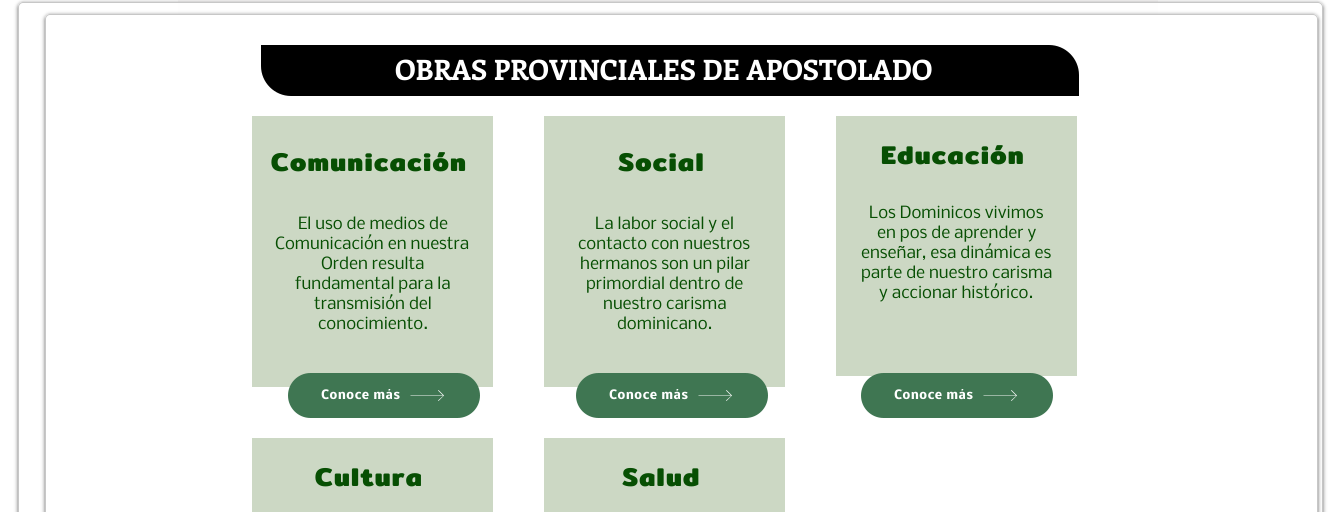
import math
import cairo


def write_spaced(ctx, x, y, s, letter, word):
	ctx.move_to(x, y)
	for ch in s:
		ctx.show_text(ch)
		ctx.rel_move_to(letter + word * (ch == ' '), 0)

def round_path(ctx, x, y, w, h, r):
	ctx.new_sub_path()
	for i, (u, v) in enumerate([(x + w - r, y + h - r), (x + r, y + h - r), (x + r, y + r), (x + w - r, y + r)]):
		ctx.arc(u, v, r, i * math.pi / 2, (i + 1) * math.pi / 2)
	ctx.close_path()

def blur_box(ctx, x, y, w, h, r, blur, alpha):
	ctx.push_group_with_content(cairo.CONTENT_ALPHA)
	ctx.set_operator(cairo.OPERATOR_SOURCE)
	for i in range(15, -16, -2):
		e = blur * i / 6
		if min(w, h) + 2 * e > 0:
			ctx.set_source_rgba(0, 0, 0, alpha * math.erfc((i - 1) / 8.5) / 2)
			round_path(ctx, x - e, y - e, w + 2 * e, h + 2 * e, max(0, min(r + e + blur * .6, min(w, h) / 2 + e)))
			ctx.fill()
	ctx.mask(ctx.pop_group())

def draw(ctx):
	ctx.set_source_rgb(1, 1, 1)
	ctx.paint()
	ctx.set_source_rgb(0.973, 0.969, 0.969)
	ctx.rectangle(178, 0, 980, 512)
	ctx.fill()
	ctx.save()
	ctx.set_fill_rule(cairo.FILL_RULE_EVEN_ODD)
	ctx.new_path()
	ctx.move_to(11, 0)
	ctx.line_to(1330, 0)
	ctx.line_to(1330, 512)
	ctx.line_to(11, 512)
	ctx.close_path()
	ctx.move_to(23, 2)
	ctx.line_to(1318, 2)
	ctx.curve_to(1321, 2, 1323, 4, 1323, 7)
	ctx.line_to(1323, 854)
	ctx.curve_to(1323, 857, 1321, 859, 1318, 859)
	ctx.line_to(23, 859)
	ctx.curve_to(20, 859, 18, 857, 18, 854)
	ctx.line_to(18, 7)
	ctx.curve_to(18, 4, 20, 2, 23, 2)
	ctx.close_path()
	ctx.clip()
	ctx.set_source_rgb(0, 0, 0)
	blur_box(ctx, 18, 3, 1305, 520, 5, 2, 0.6)
	ctx.restore()
	ctx.set_source_rgba(1, 1, 1, 0.85)
	round_path(ctx, 18.5, 2.5, 1304, 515, 4.5)
	ctx.fill_preserve()
	ctx.set_source_rgb(0.78, 0.78, 0.78)
	ctx.set_line_width(1)
	ctx.stroke()
	ctx.save()
	ctx.set_fill_rule(cairo.FILL_RULE_EVEN_ODD)
	ctx.new_path()
	ctx.move_to(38, 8)
	ctx.line_to(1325, 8)
	ctx.line_to(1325, 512)
	ctx.line_to(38, 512)
	ctx.close_path()
	ctx.move_to(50, 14)
	ctx.line_to(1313, 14)
	ctx.curve_to(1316, 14, 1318, 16, 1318, 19)
	ctx.line_to(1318, 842)
	ctx.curve_to(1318, 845, 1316, 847, 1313, 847)
	ctx.line_to(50, 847)
	ctx.curve_to(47, 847, 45, 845, 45, 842)
	ctx.line_to(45, 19)
	ctx.curve_to(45, 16, 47, 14, 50, 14)
	ctx.close_path()
	ctx.clip()
	ctx.set_source_rgb(0, 0, 0)
	blur_box(ctx, 45, 15, 1273, 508, 5, 2, 0.6)
	ctx.restore()
	ctx.set_source_rgba(1, 1, 1, 0.85)
	round_path(ctx, 45.5, 14.5, 1272, 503, 4.5)
	ctx.fill_preserve()
	ctx.set_source_rgb(0.78, 0.78, 0.78)
	ctx.stroke()
	ctx.set_source_rgb(0, 0, 0)
	ctx.new_path()
	ctx.move_to(261, 45)
	ctx.line_to(1049, 45)
	ctx.curve_to(1065.5, 45, 1079, 58.5, 1079, 75)
	ctx.line_to(1079, 96)
	ctx.line_to(291, 96)
	ctx.curve_to(274.5, 96, 261, 82.5, 261, 66)
	ctx.close_path()
	ctx.fill()
	ctx.select_font_face('Enriqueta', cairo.FONT_SLANT_NORMAL, cairo.FONT_WEIGHT_BOLD)
	ctx.set_font_size(28)
	ctx.set_source_rgb(1, 1, 1)
	ctx.move_to(395, 80)
	ctx.show_text('OBRAS PROVINCIALES DE APOSTOLADO')
	ctx.set_source_rgb(0.8, 0.847, 0.769)
	ctx.rectangle(252, 116, 241, 271)
	ctx.fill()
	ctx.select_font_face('Mitr', cairo.FONT_SLANT_NORMAL, cairo.FONT_WEIGHT_BOLD)
	ctx.set_font_size(26)
	ctx.set_source_rgb(0.031, 0.31, 0.012)
	write_spaced(ctx, 271, 171, 'Comunicación', 1.25, 0)
	ctx.select_font_face('Nobile')
	ctx.set_font_size(16)
	for x, y, s in [
		(298, 229, 'El uso de medios de'),
		(275, 249, 'Comunicación en nuestra'),
		(321, 269, 'Orden resulta'),
		(295, 289, 'fundamental para la'),
		(314, 309, 'transmisión del'),
		(318, 329, 'conocimiento.'),
	]:
		ctx.move_to(x, y)
		ctx.show_text(s)
	ctx.set_source_rgb(0.8, 0.847, 0.769)
	ctx.rectangle(252, 438, 241, 74)
	ctx.fill()
	ctx.select_font_face('Mitr', cairo.FONT_SLANT_NORMAL, cairo.FONT_WEIGHT_BOLD)
	ctx.set_font_size(26)
	ctx.set_source_rgb(0.031, 0.31, 0.012)
	write_spaced(ctx, 315, 486, 'Cultura', 1.25, 0)
	ctx.set_source_rgb(0.8, 0.847, 0.769)
	ctx.rectangle(544, 116, 241, 271)
	ctx.fill()
	ctx.set_source_rgb(0.031, 0.31, 0.012)
	write_spaced(ctx, 618, 171, 'Social', 1.25, 0)
	ctx.select_font_face('Nobile')
	ctx.set_font_size(16)
	for x, y, s in [
		(595, 229, 'La labor social y el'),
		(578, 249, 'contacto con nuestros'),
		(580, 269, 'hermanos son un pilar'),
		(586, 289, 'primordial dentro de'),
		(603, 309, 'nuestro carisma'),
		(617, 329, 'dominicano.'),
	]:
		ctx.move_to(x, y)
		ctx.show_text(s)
	ctx.set_source_rgb(0.8, 0.847, 0.769)
	ctx.rectangle(544, 438, 241, 74)
	ctx.fill()
	ctx.select_font_face('Mitr', cairo.FONT_SLANT_NORMAL, cairo.FONT_WEIGHT_BOLD)
	ctx.set_font_size(26)
	ctx.set_source_rgb(0.031, 0.31, 0.012)
	write_spaced(ctx, 622, 486, 'Salud', 1.25, 0)
	ctx.set_source_rgb(0.8, 0.847, 0.769)
	ctx.rectangle(836, 116, 241, 260)
	ctx.fill()
	ctx.set_source_rgb(0.031, 0.31, 0.012)
	write_spaced(ctx, 881, 164, 'Educación', 1.25, 0)
	ctx.select_font_face('Nobile')
	ctx.set_font_size(16)
	for x, y, s in [
		(869, 218, 'Los Dominicos vivimos'),
		(877, 238, 'en pos de aprender y'),
		(861, 258, 'enseñar, esa dinámica es'),
		(861, 278, 'parte de nuestro carisma'),
		(879, 298, 'y accionar histórico.'),
	]:
		ctx.move_to(x, y)
		ctx.show_text(s)
	ctx.set_source_rgb(0.247, 0.463, 0.322)
	round_path(ctx, 288, 373, 192, 45, 22.5)
	ctx.fill()
	ctx.save()
	ctx.rectangle(321, 389, 80, 13)
	ctx.clip()
	ctx.select_font_face('Nobile', cairo.FONT_SLANT_NORMAL, cairo.FONT_WEIGHT_BOLD)
	ctx.set_font_size(12)
	ctx.set_source_rgb(1, 1, 1)
	write_spaced(ctx, 321, 399, 'Conoce más', 0.5, 0)
	ctx.restore()
	ctx.set_source_rgb(1, 1, 1)
	ctx.new_path()
	ctx.move_to(438.5, 390)
	ctx.line_to(438, 390.5)
	ctx.line_to(443, 395.5)
	ctx.line_to(410.5, 395.5)
	ctx.line_to(410.5, 396)
	ctx.line_to(443, 396)
	ctx.line_to(438, 400.5)
	ctx.line_to(438.5, 401)
	ctx.line_to(444, 395.5)
	ctx.close_path()
	ctx.fill()
	ctx.set_source_rgb(0.247, 0.463, 0.322)
	round_path(ctx, 576, 373, 192, 45, 22.5)
	ctx.fill()
	ctx.save()
	ctx.rectangle(609, 389, 80, 13)
	ctx.clip()
	ctx.select_font_face('Nobile', cairo.FONT_SLANT_NORMAL, cairo.FONT_WEIGHT_BOLD)
	ctx.set_font_size(12)
	ctx.set_source_rgb(1, 1, 1)
	write_spaced(ctx, 609, 399, 'Conoce más', 0.5, 0)
	ctx.restore()
	ctx.set_source_rgb(1, 1, 1)
	ctx.new_path()
	ctx.move_to(726.5, 390)
	ctx.line_to(726, 390.5)
	ctx.line_to(731, 395.5)
	ctx.line_to(698.5, 395.5)
	ctx.line_to(698.5, 396)
	ctx.line_to(731, 396)
	ctx.line_to(726, 400.5)
	ctx.line_to(726.5, 401)
	ctx.line_to(732, 395.5)
	ctx.close_path()
	ctx.fill()
	ctx.set_source_rgb(0.247, 0.463, 0.322)
	round_path(ctx, 861, 373, 192, 45, 22.5)
	ctx.fill()
	ctx.save()
	ctx.rectangle(894, 389, 80, 13)
	ctx.clip()
	ctx.select_font_face('Nobile', cairo.FONT_SLANT_NORMAL, cairo.FONT_WEIGHT_BOLD)
	ctx.set_font_size(12)
	ctx.set_source_rgb(1, 1, 1)
	write_spaced(ctx, 894, 399, 'Conoce más', 0.5, 0)
	ctx.restore()
	ctx.set_source_rgb(1, 1, 1)
	ctx.new_path()
	ctx.move_to(1011.5, 390)
	ctx.line_to(1011, 390.5)
	ctx.line_to(1016, 395.5)
	ctx.line_to(983.5, 395.5)
	ctx.line_to(983.5, 396)
	ctx.line_to(1016, 396)
	ctx.line_to(1011, 400.5)
	ctx.line_to(1011.5, 401)
	ctx.line_to(1017, 395.5)
	ctx.close_path()
	ctx.fill()


surface = cairo.ImageSurface(cairo.FORMAT_RGB24, 1335, 512)
ctx = cairo.Context(surface)
options = cairo.FontOptions()
options.set_hint_metrics(cairo.HINT_METRICS_OFF)
options.set_hint_style(cairo.HINT_STYLE_NONE)
ctx.set_font_options(options)
ctx.set_miter_limit(4)
draw(ctx)
surface.write_to_png('image.png')
